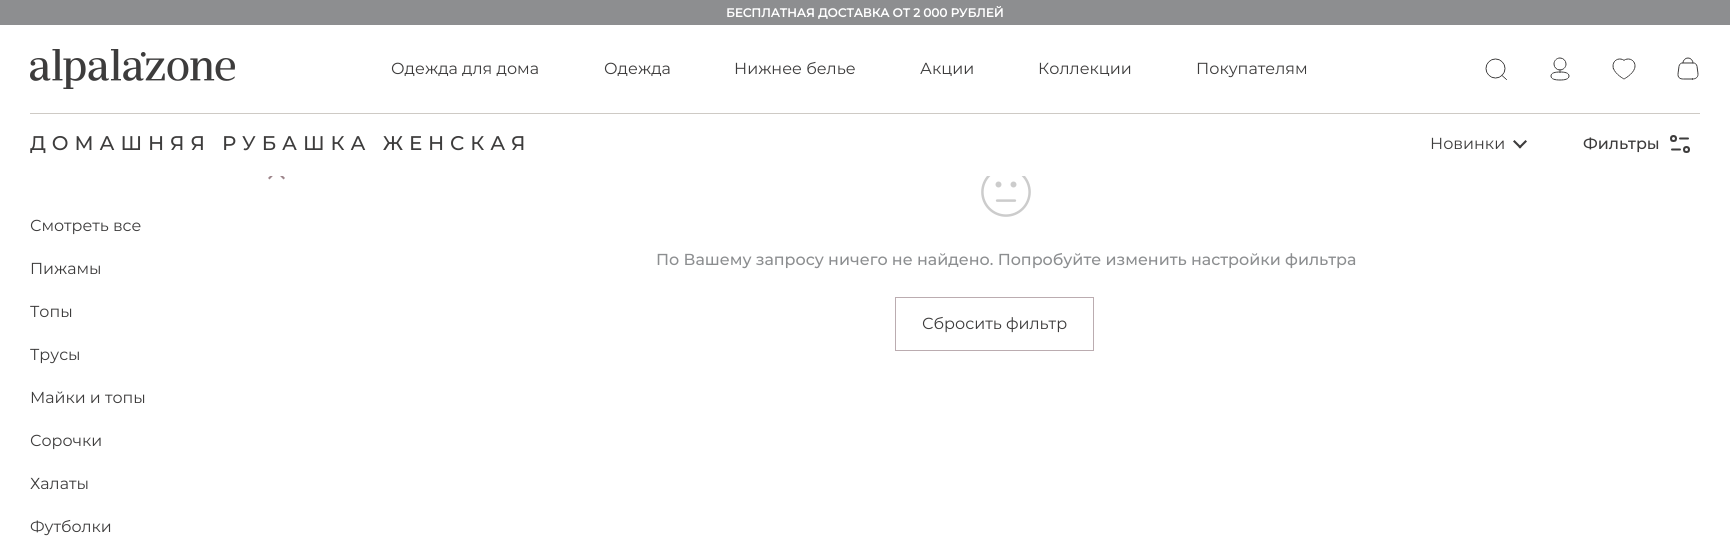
import math
import cairo


def write_spaced(ctx, x, y, s, letter, word):
	ctx.move_to(x, y)
	for ch in s:
		ctx.show_text(ch)
		ctx.rel_move_to(letter + word * (ch == ' '), 0)

def paste(ctx, path, x, y, w, h):
	ctx.save()
	ctx.set_source_surface(cairo.ImageSurface.create_from_png(path), x, y)
	ctx.rectangle(x, y, w, h)
	ctx.fill()
	ctx.restore()

def draw(ctx):
	ctx.set_source_rgb(1, 1, 1)
	ctx.paint()
	ctx.set_source_rgb(0.553, 0.557, 0.565)
	ctx.rectangle(0, 0, 1730, 25)
	ctx.fill()
	ctx.select_font_face('Montserrat', cairo.FONT_SLANT_NORMAL, cairo.FONT_WEIGHT_BOLD)
	ctx.set_font_size(12)
	ctx.set_source_rgb(1, 1, 1)
	ctx.move_to(726, 17)
	ctx.show_text('БЕСПЛАТНАЯ ДОСТАВКА ОТ 2 000 РУБЛЕЙ')
	ctx.set_source_rgb(0.808, 0.792, 0.773)
	ctx.rectangle(30, 113, 1670, 1)
	ctx.fill()
	paste(ctx, 'media/1.png', 30, 49, 205, 40)
	ctx.select_font_face('Montserrat')
	ctx.set_font_size(16)
	ctx.set_source_rgb(0.239, 0.235, 0.235)
	for x, y, s in [
		(391, 74, 'Одежда для дома'),
		(604, 74, 'Одежда'),
		(734, 74, 'Нижнее белье'),
		(920, 74, 'Акции'),
		(1038, 74, 'Коллекции'),
		(1196, 74, 'Покупателям'),
	]:
		ctx.move_to(x, y)
		ctx.show_text(s)
	paste(ctx, 'media/2.png', 1485, 58, 22, 22)
	paste(ctx, 'media/3.png', 1550, 57, 20, 24)
	paste(ctx, 'media/4.png', 1612, 58, 24, 22)
	paste(ctx, 'media/5.png', 1677, 57, 22, 23)
	ctx.set_source_rgb(0.62, 0.525, 0.549)
	ctx.new_path()
	ctx.move_to(269.5, 179.5)
	ctx.line_to(268, 178)
	ctx.line_to(276.5, 169.5)
	ctx.line_to(277.5, 171)
	ctx.close_path()
	ctx.fill()
	ctx.new_path()
	ctx.move_to(283.5, 179.5)
	ctx.line_to(275, 171)
	ctx.line_to(276.5, 169.5)
	ctx.line_to(285, 178)
	ctx.close_path()
	ctx.fill()
	ctx.set_source_rgb(1, 1, 1)
	ctx.rectangle(270, 169, 13, 7)
	ctx.fill()
	ctx.select_font_face('Montserrat Medium')
	ctx.set_font_size(19.8)
	ctx.set_source_rgb(0.239, 0.235, 0.235)
	write_spaced(ctx, 30, 150, 'ДОМАШНЯЯ РУБАШКА ЖЕНСКАЯ', 5.9, 0)
	ctx.select_font_face('Montserrat')
	ctx.set_font_size(16)
	ctx.move_to(1430, 149)
	ctx.show_text('Новинки')
	ctx.new_path()
	ctx.move_to(1525.5, 140)
	ctx.line_to(1527, 141.5)
	ctx.line_to(1520, 148.5)
	ctx.line_to(1518.5, 147)
	ctx.close_path()
	ctx.fill()
	ctx.new_path()
	ctx.move_to(1514.5, 140)
	ctx.line_to(1521.5, 147)
	ctx.line_to(1520, 148.5)
	ctx.line_to(1513, 141.5)
	ctx.close_path()
	ctx.fill()
	ctx.select_font_face('Montserrat Medium')
	ctx.set_font_size(15.9)
	ctx.move_to(1583, 149)
	ctx.show_text('Фильтры')
	paste(ctx, 'media/6.png', 1670, 135, 20, 18)
	ctx.select_font_face('Montserrat')
	for x, y, s in [
		(30, 231, 'Смотреть все'),
		(30, 274, 'Пижамы'),
		(30, 317, 'Топы'),
		(30, 360, 'Трусы'),
		(30, 403, 'Майки и топы'),
		(30, 446, 'Сорочки'),
		(30, 489, 'Халаты'),
		(30, 532, 'Футболки'),
	]:
		ctx.move_to(x, y)
		ctx.show_text(s)
	paste(ctx, 'media/7.png', 981, 176, 50, 41)
	ctx.select_font_face('Montserrat Medium')
	ctx.set_source_rgb(0.549, 0.557, 0.565)
	ctx.move_to(656, 265)
	ctx.show_text('По Вашему запросу ничего не найдено. Попробуйте изменить настройки фильтра')
	ctx.rectangle(895.5, 297.5, 198, 53)
	ctx.set_source_rgb(0.733, 0.675, 0.69)
	ctx.set_line_width(1)
	ctx.stroke()
	ctx.select_font_face('Montserrat')
	ctx.set_font_size(16)
	ctx.set_source_rgb(0.239, 0.235, 0.235)
	ctx.move_to(922, 329)
	ctx.show_text('Сбросить фильтр')


surface = cairo.ImageSurface(cairo.FORMAT_RGB24, 1730, 550)
ctx = cairo.Context(surface)
options = cairo.FontOptions()
options.set_hint_metrics(cairo.HINT_METRICS_OFF)
options.set_hint_style(cairo.HINT_STYLE_NONE)
ctx.set_font_options(options)
ctx.set_miter_limit(4)
draw(ctx)
surface.write_to_png('image.png')
